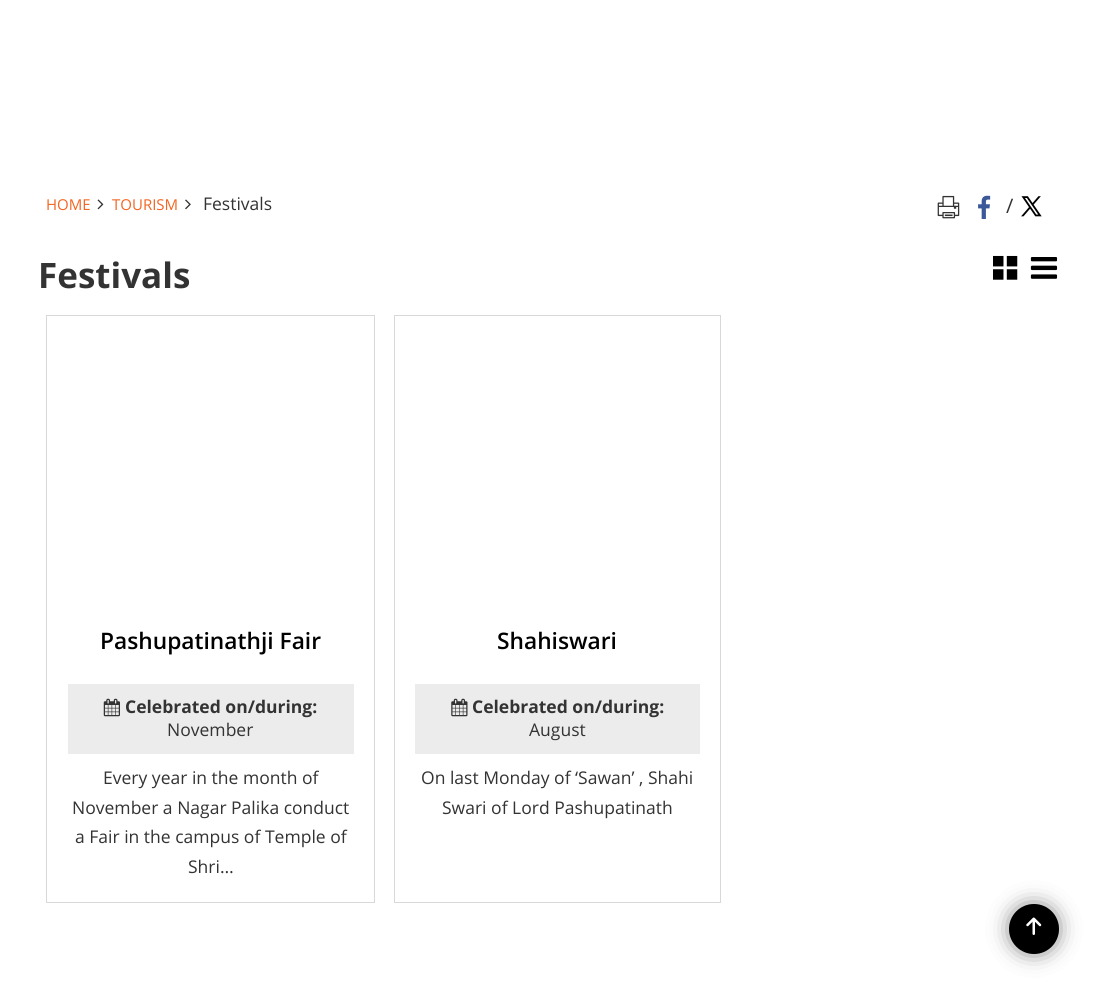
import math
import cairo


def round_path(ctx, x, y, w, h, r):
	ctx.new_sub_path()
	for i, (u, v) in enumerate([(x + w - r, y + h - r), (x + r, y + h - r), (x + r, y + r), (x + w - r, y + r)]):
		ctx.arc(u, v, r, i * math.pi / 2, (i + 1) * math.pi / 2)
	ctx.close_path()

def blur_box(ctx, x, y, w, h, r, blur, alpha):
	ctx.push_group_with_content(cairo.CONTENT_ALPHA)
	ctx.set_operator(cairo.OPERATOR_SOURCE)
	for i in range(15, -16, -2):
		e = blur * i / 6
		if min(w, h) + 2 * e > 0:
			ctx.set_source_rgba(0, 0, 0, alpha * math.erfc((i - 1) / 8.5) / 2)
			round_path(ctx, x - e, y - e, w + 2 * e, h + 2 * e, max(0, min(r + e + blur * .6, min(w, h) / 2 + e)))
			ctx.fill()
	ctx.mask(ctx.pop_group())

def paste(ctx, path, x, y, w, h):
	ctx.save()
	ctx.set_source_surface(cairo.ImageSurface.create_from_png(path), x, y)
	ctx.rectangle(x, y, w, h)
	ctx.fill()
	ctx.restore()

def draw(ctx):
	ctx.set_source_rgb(1, 1, 1)
	ctx.paint()
	ctx.select_font_face('Open Sans')
	ctx.set_font_size(15)
	ctx.set_source_rgb(0.949, 0.396, 0.133)
	ctx.move_to(46, 210)
	ctx.show_text('HOME')
	paste(ctx, 'media/1.png', 97, 199, 7, 11)
	ctx.move_to(112, 210)
	ctx.show_text('TOURISM')
	paste(ctx, 'media/2.png', 185, 199, 6, 11)
	ctx.set_font_size(17.5)
	ctx.set_source_rgb(0.2, 0.2, 0.2)
	ctx.move_to(203, 210)
	ctx.show_text('Festivals')
	paste(ctx, 'media/3.png', 937, 195, 23, 24)
	paste(ctx, 'media/4.png', 978, 195, 13, 24)
	ctx.set_font_size(20)
	ctx.move_to(1006, 213)
	ctx.show_text('/')
	paste(ctx, 'media/5.png', 1021, 196, 21, 21)
	ctx.select_font_face('Open Sans', cairo.FONT_SLANT_NORMAL, cairo.FONT_WEIGHT_BOLD)
	ctx.set_font_size(35)
	ctx.move_to(38, 288)
	ctx.show_text('Festivals')
	paste(ctx, 'media/6.png', 993, 255, 25, 25)
	paste(ctx, 'media/7.png', 1030, 257, 28, 22)
	ctx.rectangle(46.5, 315.5, 328, 587)
	ctx.set_source_rgb(0.847, 0.847, 0.847)
	ctx.set_line_width(1)
	ctx.stroke()
	ctx.select_font_face('Open Sans SemiBold')
	ctx.set_font_size(22.75)
	ctx.set_source_rgb(0, 0, 0)
	ctx.move_to(100, 649)
	ctx.show_text('Pashupatinathji Fair')
	ctx.set_source_rgb(0.925, 0.922, 0.922)
	ctx.rectangle(68, 684, 286, 70)
	ctx.fill()
	paste(ctx, 'media/8.png', 103, 698, 17, 19)
	ctx.select_font_face('Open Sans', cairo.FONT_SLANT_NORMAL, cairo.FONT_WEIGHT_BOLD)
	ctx.set_font_size(17.5)
	ctx.set_source_rgb(0.2, 0.2, 0.2)
	ctx.move_to(125, 713)
	ctx.show_text('Celebrated on/during:')
	ctx.select_font_face('Open Sans')
	for x, y, s in [
		(167, 736, 'November'),
		(103, 784, 'Every year in the month of'),
		(72, 814, 'November a Nagar Palika conduct'),
		(75, 843, 'a Fair in the campus of Temple of'),
		(188, 873, 'Shri…'),
	]:
		ctx.move_to(x, y)
		ctx.show_text(s)
	ctx.rectangle(394.5, 315.5, 326, 587)
	ctx.set_source_rgb(0.847, 0.847, 0.847)
	ctx.stroke()
	ctx.select_font_face('Open Sans SemiBold')
	ctx.set_font_size(22.75)
	ctx.set_source_rgb(0, 0, 0)
	ctx.move_to(497, 649)
	ctx.show_text('Shahiswari')
	ctx.set_source_rgb(0.925, 0.922, 0.922)
	ctx.rectangle(415, 684, 285, 70)
	ctx.fill()
	paste(ctx, 'media/9.png', 451, 698, 17, 19)
	ctx.select_font_face('Open Sans', cairo.FONT_SLANT_NORMAL, cairo.FONT_WEIGHT_BOLD)
	ctx.set_font_size(17.5)
	ctx.set_source_rgb(0.2, 0.2, 0.2)
	ctx.move_to(472, 713)
	ctx.show_text('Celebrated on/during:')
	ctx.select_font_face('Open Sans')
	for x, y, s in [
		(529, 736, 'August'),
		(421, 784, 'On last Monday of ‘Sawan’ , Shahi'),
		(442, 814, 'Swari of Lord Pashupatinath'),
	]:
		ctx.move_to(x, y)
		ctx.show_text(s)
	ctx.set_source_rgb(0.235, 0.235, 0.235)
	blur_box(ctx, 1015, 910, 38, 38, 19, 12, 1)
	ctx.set_source_rgb(0, 0, 0)
	ctx.arc(1034, 929, 25, 0, 2 * math.pi)
	ctx.fill()
	paste(ctx, 'media/10.png', 1026, 917, 16, 18)


surface = cairo.ImageSurface(cairo.FORMAT_RGB24, 1096, 991)
ctx = cairo.Context(surface)
options = cairo.FontOptions()
options.set_hint_metrics(cairo.HINT_METRICS_OFF)
options.set_hint_style(cairo.HINT_STYLE_NONE)
ctx.set_font_options(options)
ctx.set_miter_limit(4)
draw(ctx)
surface.write_to_png('image.png')
